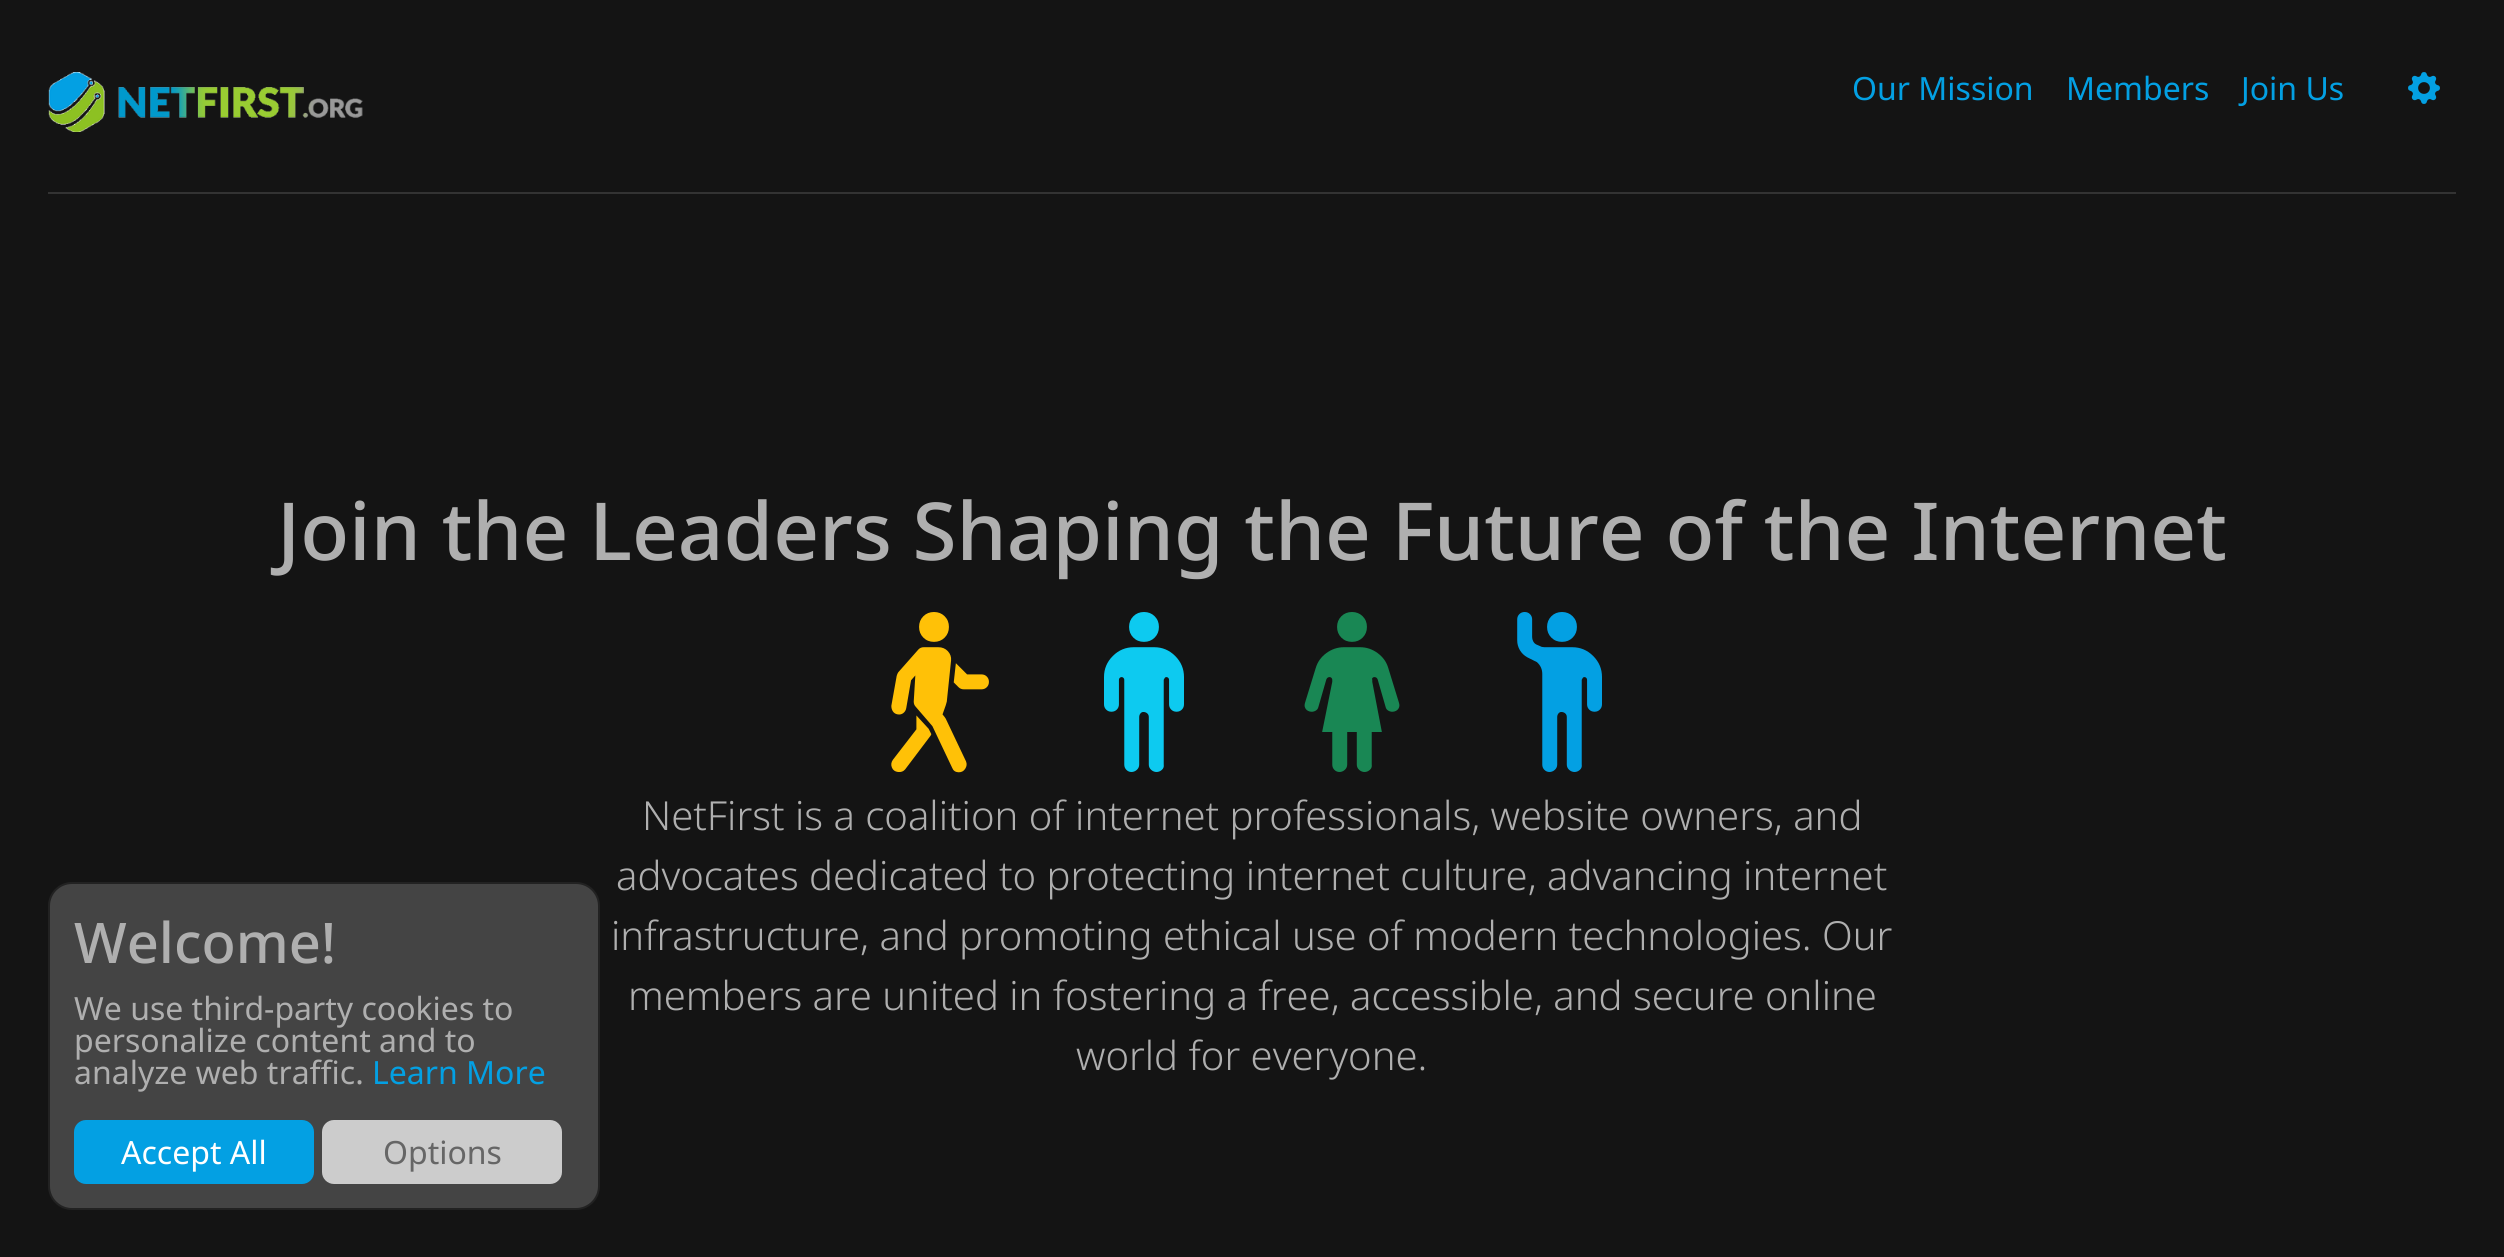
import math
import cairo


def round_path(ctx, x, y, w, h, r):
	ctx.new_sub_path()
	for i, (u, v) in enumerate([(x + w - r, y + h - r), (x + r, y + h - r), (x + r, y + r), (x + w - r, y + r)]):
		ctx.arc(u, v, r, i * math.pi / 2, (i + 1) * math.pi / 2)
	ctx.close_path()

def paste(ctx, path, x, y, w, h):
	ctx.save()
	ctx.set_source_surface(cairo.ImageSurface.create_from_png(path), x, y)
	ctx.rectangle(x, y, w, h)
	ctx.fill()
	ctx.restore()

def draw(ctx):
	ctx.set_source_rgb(0.082, 0.082, 0.082)
	ctx.paint()
	ctx.set_source_rgb(0.2, 0.2, 0.2)
	ctx.rectangle(48, 192, 2408, 2)
	ctx.fill()
	paste(ctx, 'media/1.png', 48, 72, 315, 60)
	ctx.select_font_face('Noto Sans')
	ctx.set_font_size(32)
	ctx.set_source_rgb(0.012, 0.627, 0.89)
	for x, y, s in [
		(1852, 100, 'Our Mission'),
		(2066, 100, 'Members'),
		(2241, 100, 'Join Us'),
	]:
		ctx.move_to(x, y)
		ctx.show_text(s)
	paste(ctx, 'media/2.png', 2408, 72, 32, 32)
	ctx.select_font_face('Noto Sans Medium')
	ctx.set_font_size(80)
	ctx.set_source_rgb(0.686, 0.686, 0.686)
	ctx.move_to(277, 560)
	ctx.show_text('Join the Leaders Shaping the Future of the Internet')
	paste(ctx, 'media/3.png', 891, 612, 98, 161)
	paste(ctx, 'media/4.png', 1104, 612, 80, 160)
	paste(ctx, 'media/5.png', 1304, 612, 96, 160)
	paste(ctx, 'media/6.png', 1517, 612, 85, 160)
	ctx.select_font_face('Noto Sans Light')
	ctx.set_font_size(40)
	for x, y, s in [
		(642, 830, 'NetFirst is a coalition of internet professionals, website owners, and'),
		(616, 890, 'advocates dedicated to protecting internet culture, advancing internet'),
		(611, 950, 'infrastructure, and promoting ethical use of modern technologies. Our'),
		(628, 1010, 'members are united in fostering a free, accessible, and secure online'),
		(1076, 1070, 'world for everyone.'),
	]:
		ctx.move_to(x, y)
		ctx.show_text(s)
	ctx.set_source_rgb(0.267, 0.267, 0.267)
	round_path(ctx, 49, 883, 550, 326, 23)
	ctx.fill_preserve()
	ctx.set_source_rgb(0.133, 0.133, 0.133)
	ctx.stroke()
	ctx.select_font_face('Noto Sans Medium')
	ctx.set_font_size(56)
	ctx.set_source_rgb(0.686, 0.686, 0.686)
	ctx.move_to(74, 963)
	ctx.show_text('Welcome!')
	ctx.select_font_face('Noto Sans')
	ctx.set_font_size(32)
	for x, y, s in [
		(74, 1020, 'We use third-party cookies to'),
		(74, 1052, 'personalize content and to'),
		(74, 1084, 'analyze web traffic.'),
	]:
		ctx.move_to(x, y)
		ctx.show_text(s)
	ctx.set_source_rgb(0.012, 0.627, 0.89)
	ctx.move_to(372, 1084)
	ctx.show_text('Learn More')
	round_path(ctx, 74, 1120, 240, 64, 12)
	ctx.fill()
	ctx.set_source_rgb(1, 1, 1)
	ctx.move_to(121, 1164)
	ctx.show_text('Accept All')
	ctx.set_source_rgb(0.8, 0.8, 0.8)
	round_path(ctx, 322, 1120, 240, 64, 12)
	ctx.fill()
	ctx.set_source_rgb(0.4, 0.4, 0.4)
	ctx.move_to(383, 1164)
	ctx.show_text('Options')


surface = cairo.ImageSurface(cairo.FORMAT_RGB24, 2504, 1257)
ctx = cairo.Context(surface)
options = cairo.FontOptions()
options.set_hint_metrics(cairo.HINT_METRICS_OFF)
options.set_hint_style(cairo.HINT_STYLE_NONE)
ctx.set_font_options(options)
ctx.set_miter_limit(4)
draw(ctx)
surface.write_to_png('image.png')
